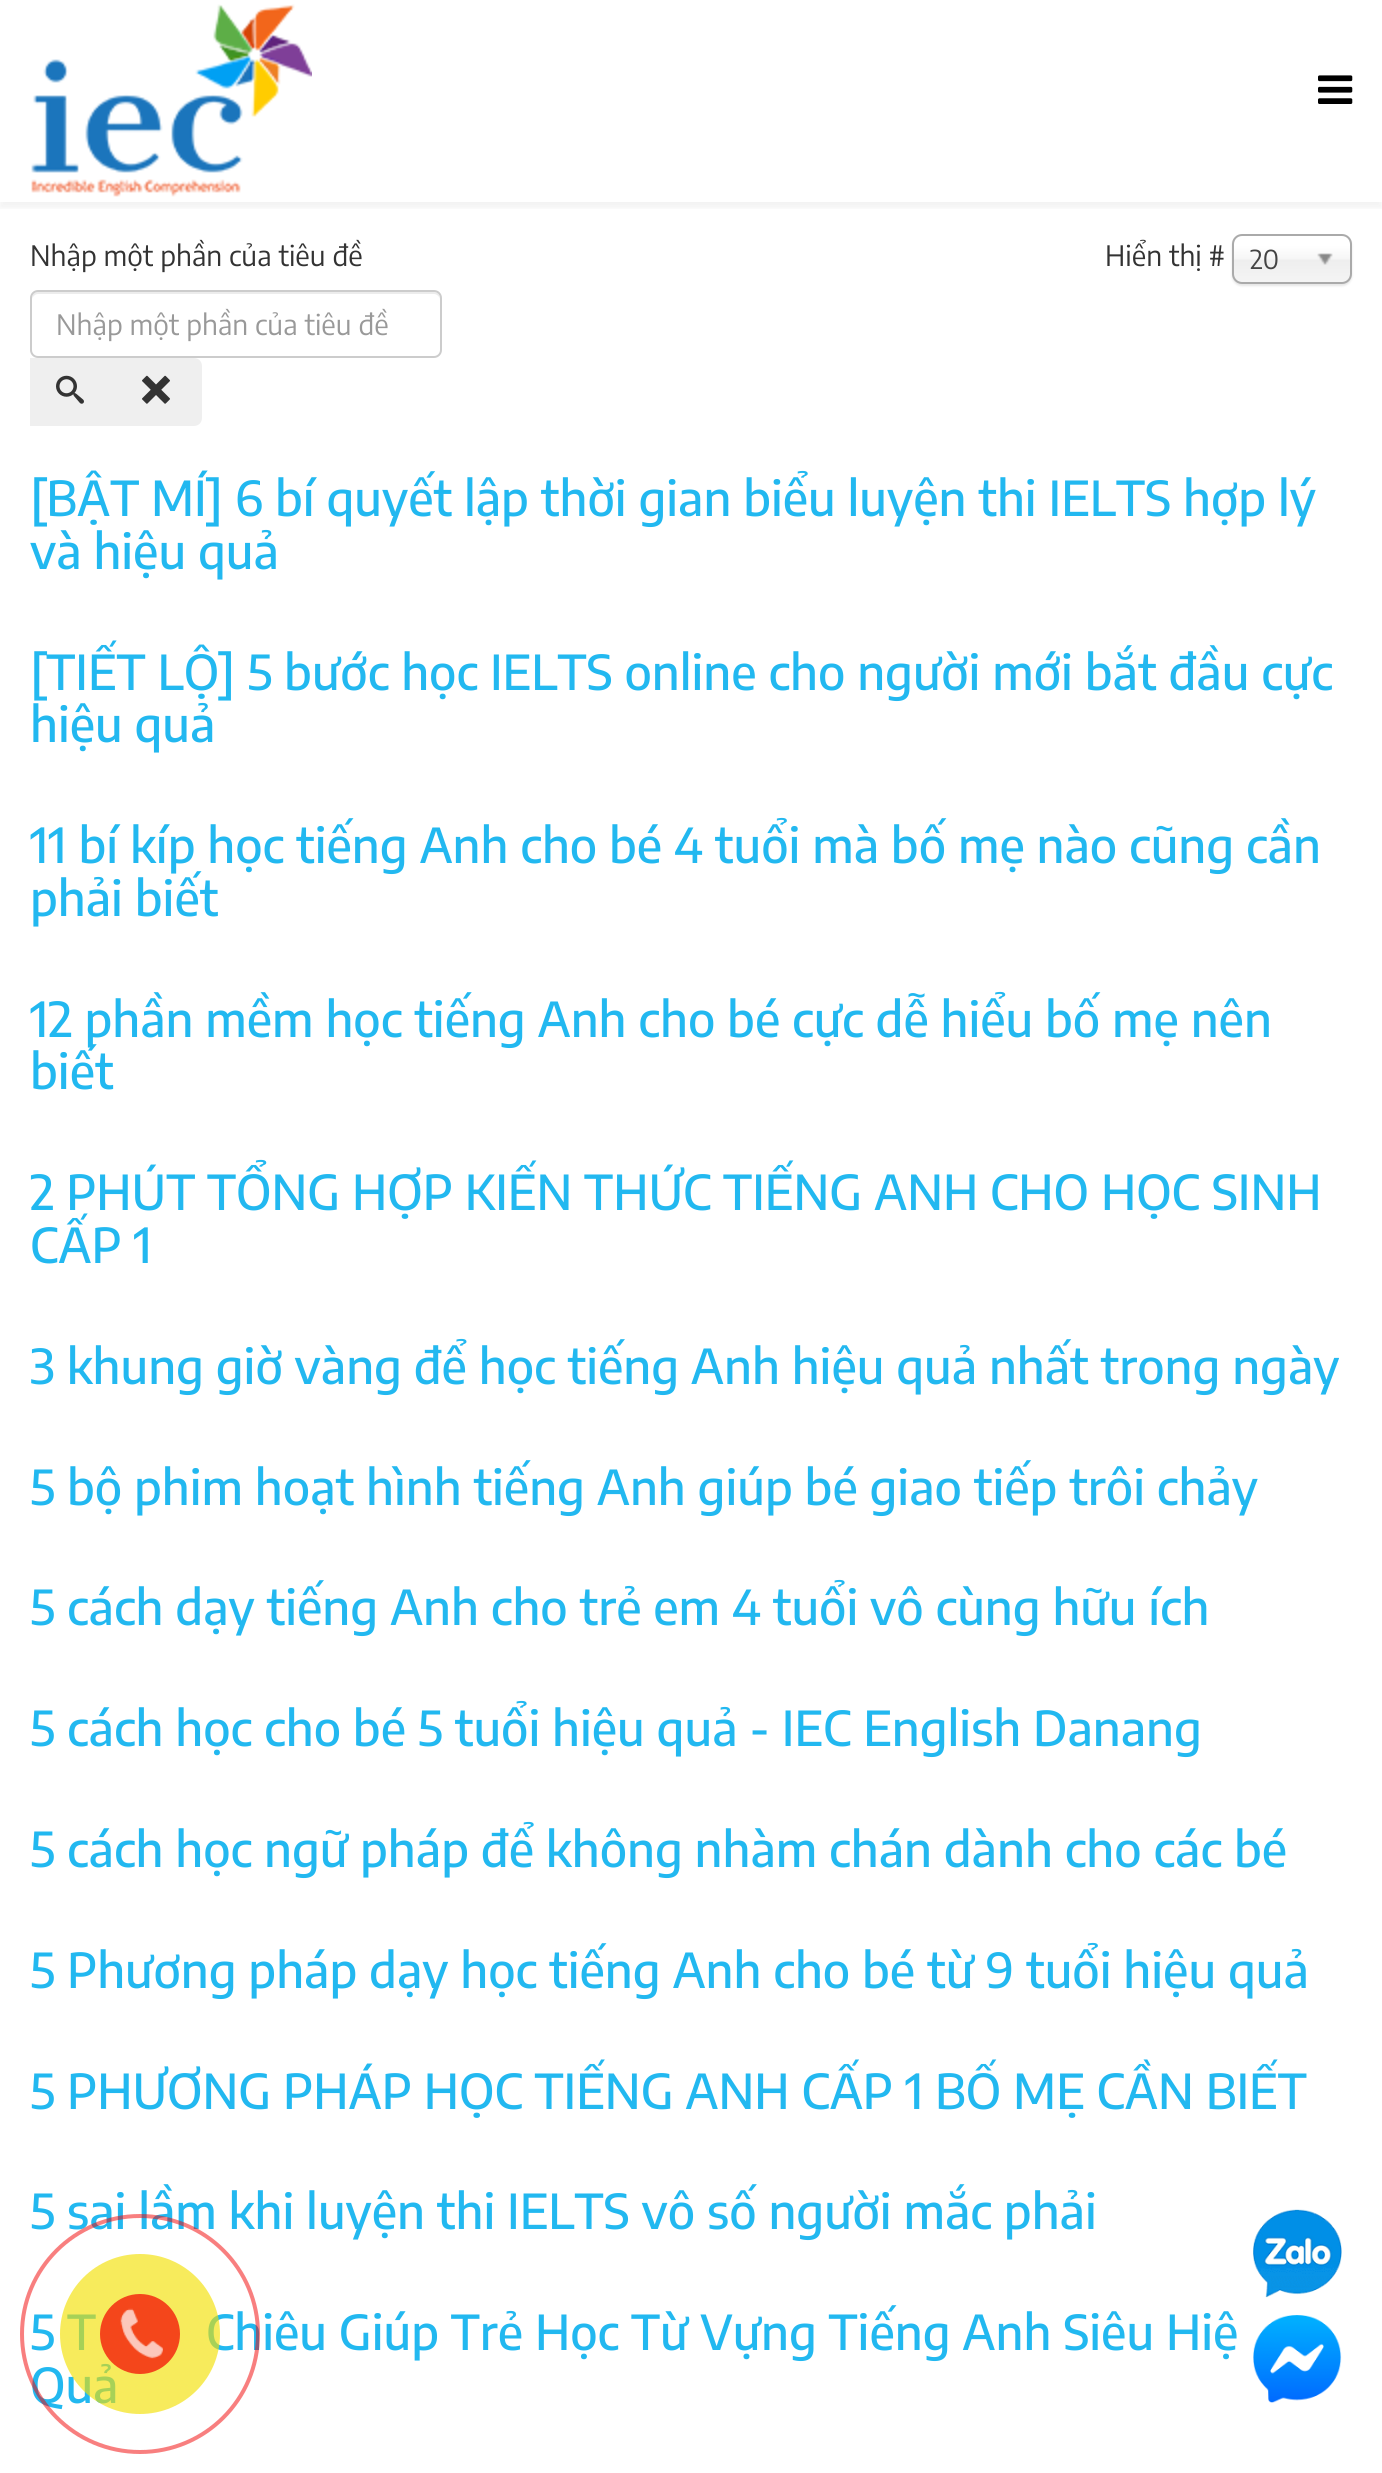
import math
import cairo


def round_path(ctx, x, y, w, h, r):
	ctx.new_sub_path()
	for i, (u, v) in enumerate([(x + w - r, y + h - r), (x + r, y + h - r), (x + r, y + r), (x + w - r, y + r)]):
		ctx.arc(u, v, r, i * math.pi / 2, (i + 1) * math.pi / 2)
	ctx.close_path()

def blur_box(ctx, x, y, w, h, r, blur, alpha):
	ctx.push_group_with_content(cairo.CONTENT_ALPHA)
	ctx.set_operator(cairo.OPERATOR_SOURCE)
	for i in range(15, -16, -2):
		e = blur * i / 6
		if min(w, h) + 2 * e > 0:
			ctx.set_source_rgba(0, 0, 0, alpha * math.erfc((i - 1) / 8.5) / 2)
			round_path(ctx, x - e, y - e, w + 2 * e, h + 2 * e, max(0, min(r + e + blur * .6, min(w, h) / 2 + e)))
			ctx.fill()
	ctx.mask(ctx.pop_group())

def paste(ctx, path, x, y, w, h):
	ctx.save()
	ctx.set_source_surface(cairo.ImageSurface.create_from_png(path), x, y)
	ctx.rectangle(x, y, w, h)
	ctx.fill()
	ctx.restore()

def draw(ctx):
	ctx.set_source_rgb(1, 1, 1)
	ctx.paint()
	ctx.save()
	ctx.rectangle(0, 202, 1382, 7)
	ctx.clip()
	ctx.set_source_rgb(0, 0, 0)
	blur_box(ctx, 0, 6, 1382, 202, 0, 3, 0.05)
	ctx.restore()
	paste(ctx, 'media/1.png', 31, 4, 281, 193)
	paste(ctx, 'media/2.png', 1318, 75, 35, 29)
	ctx.select_font_face('Encode Sans Condensed')
	ctx.set_font_size(28)
	ctx.set_source_rgb(0.2, 0.2, 0.2)
	ctx.move_to(30, 266)
	ctx.show_text('Nhập một phần của tiêu đề')
	ctx.set_source_rgb(0.925, 0.925, 0.925)
	ctx.new_path()
	ctx.move_to(38, 294)
	ctx.line_to(434, 294)
	ctx.curve_to(437, 294, 440, 297, 440, 300)
	ctx.curve_to(440, 296, 439, 292, 434, 292)
	ctx.line_to(38, 292)
	ctx.curve_to(33, 292, 32, 296, 32, 300)
	ctx.curve_to(32, 297, 35, 294, 38, 294)
	ctx.close_path()
	ctx.fill()
	round_path(ctx, 31, 291, 410, 66, 7)
	ctx.set_source_rgb(0.8, 0.8, 0.8)
	ctx.stroke()
	ctx.set_source_rgb(0.6, 0.6, 0.6)
	ctx.move_to(56, 335)
	ctx.show_text('Nhập một phần của tiêu đề')
	ctx.set_source_rgb(0.937, 0.937, 0.937)
	ctx.rectangle(30, 358, 86, 68)
	ctx.fill()
	paste(ctx, 'media/3.png', 56, 375, 28, 29)
	ctx.new_path()
	ctx.move_to(116, 358)
	ctx.line_to(194, 358)
	ctx.curve_to(198.5, 358, 202, 361.5, 202, 366)
	ctx.line_to(202, 418)
	ctx.curve_to(202, 422.5, 198.5, 426, 194, 426)
	ctx.line_to(116, 426)
	ctx.close_path()
	ctx.fill()
	paste(ctx, 'media/4.png', 142, 375, 28, 29)
	ctx.set_source_rgb(0.2, 0.2, 0.2)
	ctx.move_to(1105, 266)
	ctx.show_text('Hiển thị #')
	ctx.set_source_rgb(0, 0, 0)
	blur_box(ctx, 1232, 236, 120, 50, 10, 1, 0.1)
	gradient = cairo.LinearGradient(1292, 236, 1292, 282)
	gradient.add_color_stop_rgba(0.2, 1, 1, 1, 1)
	gradient.add_color_stop_rgba(0.5, 0.965, 0.965, 0.965, 1)
	gradient.add_color_stop_rgba(0.52, 0.933, 0.933, 0.933, 1)
	gradient.add_color_stop_rgba(1, 0.957, 0.957, 0.957, 1)
	ctx.set_source(gradient)
	round_path(ctx, 1234, 236, 116, 46, 8)
	ctx.fill()
	round_path(ctx, 1233, 235, 118, 48, 9)
	ctx.set_source_rgb(0.667, 0.667, 0.667)
	ctx.stroke()
	ctx.set_font_size(26)
	ctx.set_source_rgb(0.267, 0.267, 0.267)
	ctx.move_to(1250, 269)
	ctx.show_text('20')
	paste(ctx, 'media/5.png', 1317, 253, 16, 12)
	ctx.select_font_face('Encode Sans Condensed Medium')
	ctx.set_font_size(48)
	ctx.set_source_rgb(0.133, 0.722, 0.941)
	for x, y, s in [
		(30, 516, '[BẬT MÍ] 6 bí quyết lập thời gian biểu luyện thi IELTS hợp lý'),
		(30, 569, 'và hiệu quả'),
		(30, 690, '[TIẾT LỘ] 5 bước học IELTS online cho người mới bắt đầu cực'),
		(30, 742, 'hiệu quả'),
		(30, 863, '11 bí kíp học tiếng Anh cho bé 4 tuổi mà bố mẹ nào cũng cần'),
		(30, 916, 'phải biết'),
		(30, 1037, '12 phần mềm học tiếng Anh cho bé cực dễ hiểu bố mẹ nên'),
		(30, 1089, 'biết'),
		(30, 1210, '2 PHÚT TỔNG HỢP KIẾN THỨC TIẾNG ANH CHO HỌC SINH'),
		(30, 1263, 'CẤP 1'),
		(30, 1384, '3 khung giờ vàng để học tiếng Anh hiệu quả nhất trong ngày'),
		(30, 1505, '5 bộ phim hoạt hình tiếng Anh giúp bé giao tiếp trôi chảy'),
		(30, 1625, '5 cách dạy tiếng Anh cho trẻ em 4 tuổi vô cùng hữu ích'),
		(30, 1746, '5 cách học cho bé 5 tuổi hiệu quả - IEC English Danang'),
		(30, 1867, '5 cách học ngữ pháp để không nhàm chán dành cho các bé'),
		(30, 1988, '5 Phương pháp dạy học tiếng Anh cho bé từ 9 tuổi hiệu quả'),
		(30, 2109, '5 PHƯƠNG PHÁP HỌC TIẾNG ANH CẤP 1 BỐ MẸ CẦN BIẾT'),
		(30, 2229, '5 sai lầm khi luyện thi IELTS vô số người mắc phải'),
		(30, 2350, '5 T'),
		(206, 2350, 'Chiêu Giúp Trẻ Học Từ Vựng Tiếng Anh Siêu Hiệ'),
		(30, 2403, 'Quả'),
	]:
		ctx.move_to(x, y)
		ctx.show_text(s)
	ctx.new_path()
	ctx.arc(140, 2334, 118, 0, 2 * math.pi)
	ctx.set_source_rgba(0.949, 0, 0, 0.5)
	ctx.set_line_width(4)
	ctx.stroke()
	ctx.set_source_rgba(0.949, 0.875, 0, 0.64)
	ctx.arc(140, 2334, 80, 0, 2 * math.pi)
	ctx.fill()
	ctx.set_source_rgba(0.949, 0, 0, 0.7)
	ctx.arc(140, 2334, 40, 0, 2 * math.pi)
	ctx.fill()
	paste(ctx, 'media/6.png', 120, 2308, 43, 51)
	paste(ctx, 'media/7.png', 1253, 2209, 89, 89)
	paste(ctx, 'media/8.png', 1253, 2315, 89, 88)


surface = cairo.ImageSurface(cairo.FORMAT_RGB24, 1382, 2473)
ctx = cairo.Context(surface)
options = cairo.FontOptions()
options.set_hint_metrics(cairo.HINT_METRICS_OFF)
options.set_hint_style(cairo.HINT_STYLE_NONE)
ctx.set_font_options(options)
ctx.set_miter_limit(4)
draw(ctx)
surface.write_to_png('image.png')
